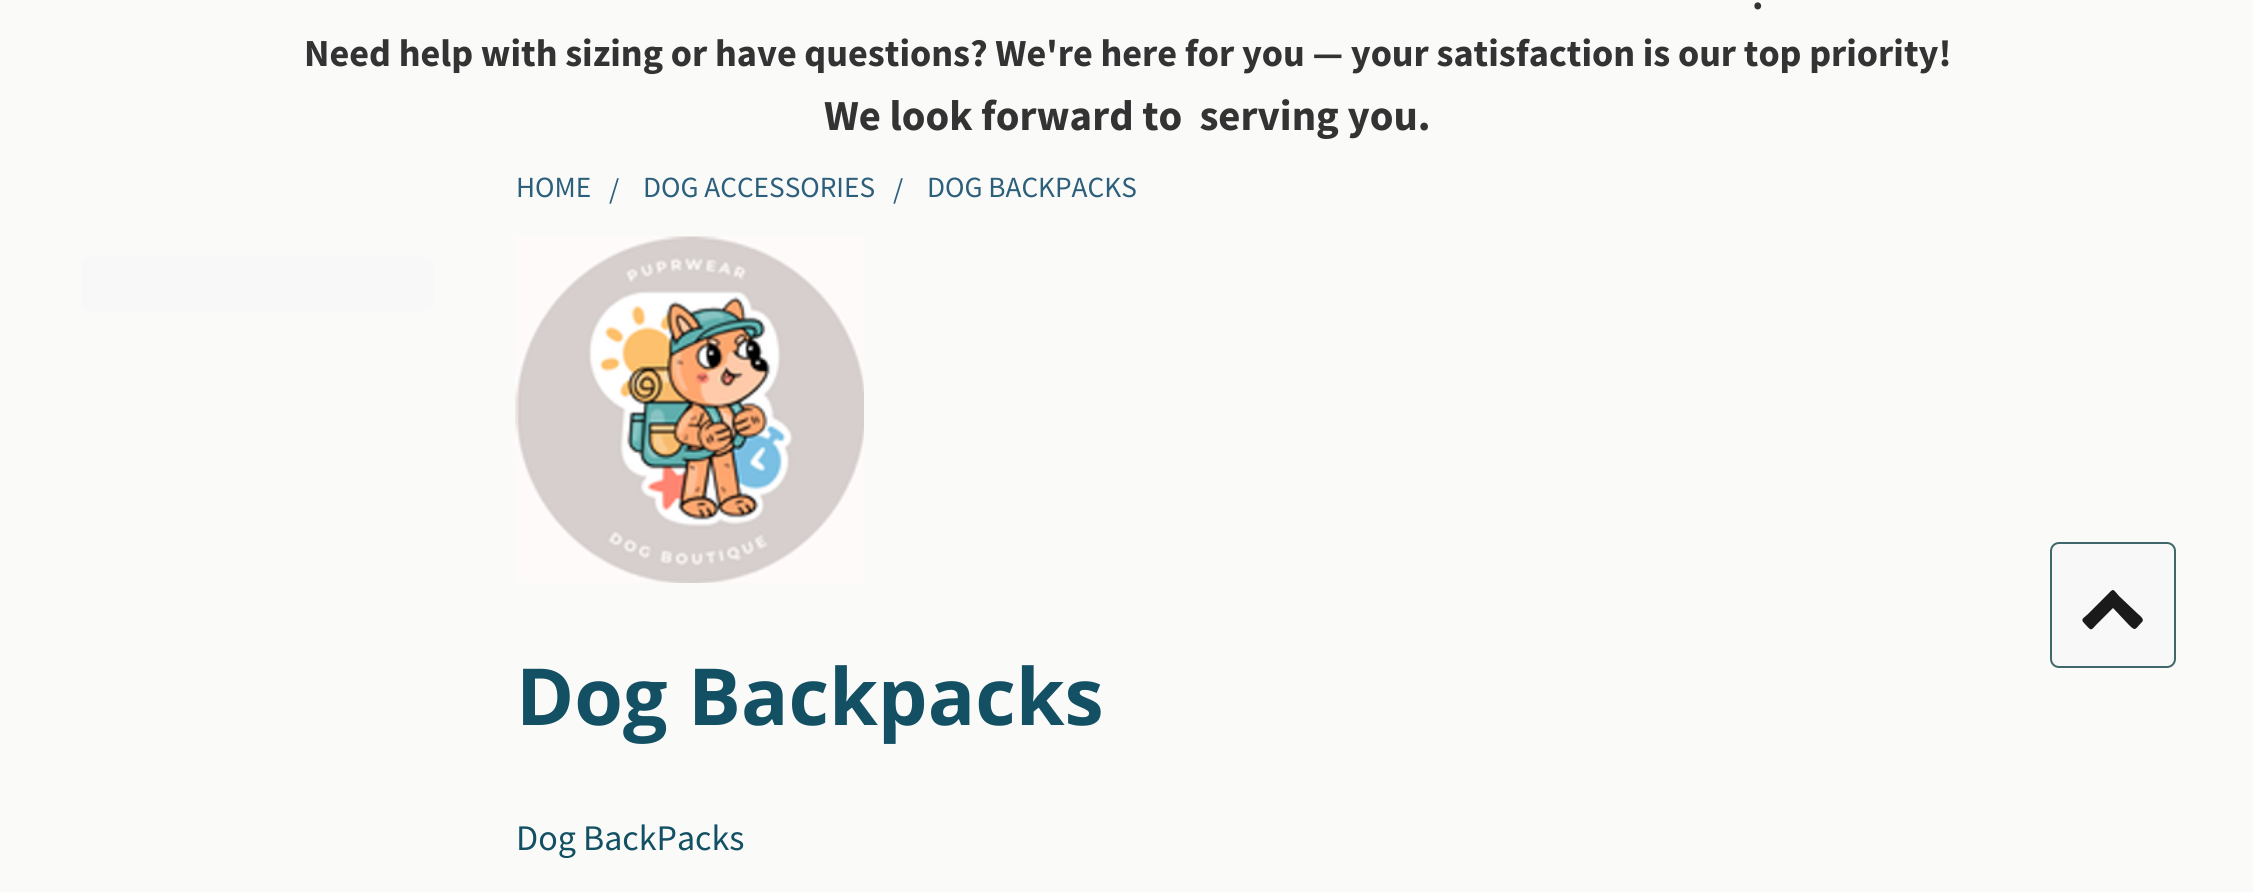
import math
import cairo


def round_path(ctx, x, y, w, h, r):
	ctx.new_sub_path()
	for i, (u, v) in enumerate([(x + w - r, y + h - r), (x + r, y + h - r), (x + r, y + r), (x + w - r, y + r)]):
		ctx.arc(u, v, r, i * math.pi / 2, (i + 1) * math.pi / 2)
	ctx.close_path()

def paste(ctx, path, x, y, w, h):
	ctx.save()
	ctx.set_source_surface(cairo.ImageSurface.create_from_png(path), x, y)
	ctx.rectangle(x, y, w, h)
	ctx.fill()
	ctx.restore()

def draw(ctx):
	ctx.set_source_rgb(0.98, 0.98, 0.976)
	ctx.paint()
	ctx.select_font_face('Source Sans Pro', cairo.FONT_SLANT_NORMAL, cairo.FONT_WEIGHT_BOLD)
	ctx.set_font_size(38.25)
	ctx.set_source_rgb(0.2, 0.2, 0.2)
	ctx.move_to(1752, 9)
	ctx.show_text('.')
	ctx.move_to(304, 66)
	ctx.show_text('Need help with sizing or have questions? We\'re here for you — your satisfaction is our top priority!')
	ctx.set_font_size(42.75)
	ctx.move_to(824, 130)
	ctx.show_text('We look forward to  serving you.')
	ctx.set_source_rgb(0.969, 0.969, 0.969)
	round_path(ctx, 81, 257, 353, 54, 9)
	ctx.fill()
	ctx.select_font_face('Source Sans Pro')
	ctx.set_font_size(29.25)
	ctx.set_source_rgb(0.173, 0.373, 0.482)
	for x, y, s in [
		(516, 197, 'HOME'),
		(609, 199, '/'),
		(643, 197, 'DOG ACCESSORIES'),
		(893, 199, '/'),
		(927, 197, 'DOG BACKPACKS'),
	]:
		ctx.move_to(x, y)
		ctx.show_text(s)
	paste(ctx, 'media/1.png', 515, 236, 349, 347)
	ctx.select_font_face('Open Sans', cairo.FONT_SLANT_NORMAL, cairo.FONT_WEIGHT_BOLD)
	ctx.set_font_size(78.75)
	ctx.set_source_rgb(0.075, 0.314, 0.392)
	ctx.move_to(516, 725)
	ctx.show_text('Dog Backpacks')
	ctx.select_font_face('Source Sans Pro')
	ctx.set_font_size(36)
	ctx.move_to(516, 850)
	ctx.show_text('Dog BackPacks')
	ctx.set_source_rgb(0.969, 0.969, 0.969)
	round_path(ctx, 2051, 543, 124, 124, 8)
	ctx.fill_preserve()
	ctx.set_source_rgb(0.251, 0.408, 0.416)
	ctx.stroke()
	ctx.set_source_rgb(0.102, 0.102, 0.102)
	ctx.new_path()
	ctx.move_to(2142, 622)
	ctx.curve_to(2135, 629, 2136, 632, 2129, 625)
	ctx.line_to(2113, 608)
	ctx.line_to(2096, 625)
	ctx.curve_to(2090, 632, 2091, 630, 2084, 623)
	ctx.curve_to(2080, 619, 2084, 618, 2088, 614)
	ctx.line_to(2106, 596)
	ctx.curve_to(2114, 588, 2112, 588, 2119, 596)
	ctx.line_to(2138, 614)
	ctx.curve_to(2139, 615, 2145, 619, 2142, 622)
	ctx.close_path()
	ctx.fill()


surface = cairo.ImageSurface(cairo.FORMAT_RGB24, 2253, 892)
ctx = cairo.Context(surface)
options = cairo.FontOptions()
options.set_hint_metrics(cairo.HINT_METRICS_OFF)
options.set_hint_style(cairo.HINT_STYLE_NONE)
ctx.set_font_options(options)
ctx.set_miter_limit(4)
draw(ctx)
surface.write_to_png('image.png')
